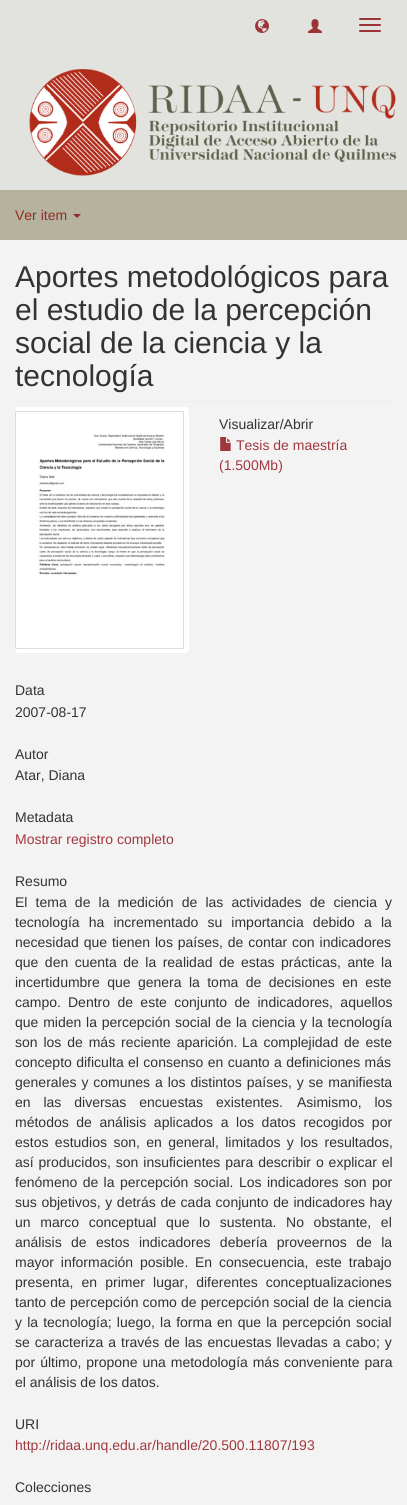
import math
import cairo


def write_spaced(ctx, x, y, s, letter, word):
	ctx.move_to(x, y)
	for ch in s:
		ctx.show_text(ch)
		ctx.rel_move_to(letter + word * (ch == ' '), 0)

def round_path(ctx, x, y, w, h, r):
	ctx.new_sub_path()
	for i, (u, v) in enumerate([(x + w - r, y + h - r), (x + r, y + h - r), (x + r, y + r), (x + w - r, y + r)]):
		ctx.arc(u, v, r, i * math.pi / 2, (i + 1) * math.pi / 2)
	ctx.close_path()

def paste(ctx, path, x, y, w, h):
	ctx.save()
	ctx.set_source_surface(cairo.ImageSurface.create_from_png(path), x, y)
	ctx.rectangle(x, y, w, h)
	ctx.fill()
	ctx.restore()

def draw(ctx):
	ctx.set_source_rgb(0.71, 0.702, 0.616)
	ctx.paint()
	ctx.set_source_rgb(0.886, 0.89, 0.871)
	ctx.rectangle(0, 0, 407, 190)
	ctx.fill()
	paste(ctx, 'media/1.png', 255, 19, 14, 14)
	paste(ctx, 'media/2.png', 308, 19, 14, 14)
	ctx.set_source_rgb(0.616, 0.204, 0.22)
	round_path(ctx, 359, 18, 22, 2, 1)
	ctx.fill()
	round_path(ctx, 359, 24, 22, 2, 1)
	ctx.fill()
	round_path(ctx, 359, 30, 22, 2, 1)
	ctx.fill()
	paste(ctx, 'media/3.png', 29, 69, 368, 107)
	ctx.select_font_face('Liberation Sans')
	ctx.set_font_size(14)
	ctx.set_source_rgb(0.576, 0.165, 0.165)
	ctx.move_to(15, 220)
	ctx.show_text('Ver item')
	ctx.new_path()
	ctx.move_to(73, 214)
	ctx.line_to(81, 214)
	ctx.line_to(77, 218)
	ctx.close_path()
	ctx.fill()
	ctx.set_source_rgb(0.953, 0.953, 0.957)
	ctx.rectangle(0, 240, 407, 1265)
	ctx.fill()
	ctx.set_source_rgb(0.933, 0.933, 0.933)
	ctx.rectangle(15, 401, 377, 1)
	ctx.fill()
	ctx.set_font_size(30)
	ctx.set_source_rgb(0.2, 0.2, 0.2)
	for x, y, s in [
		(15, 287, 'Aportes metodológicos para'),
		(15, 320, 'el estudio de la percepción'),
		(15, 353, 'social de la ciencia y la'),
		(15, 386, 'tecnología'),
	]:
		ctx.move_to(x, y)
		ctx.show_text(s)
	ctx.set_source_rgb(1, 1, 1)
	round_path(ctx, 15, 407, 174, 246, 4)
	ctx.fill()
	ctx.rectangle(15.5, 411.5, 168, 237)
	ctx.set_source_rgb(0.867, 0.867, 0.867)
	ctx.set_line_width(1)
	ctx.stroke()
	paste(ctx, 'media/4.png', 37, 433, 128, 143)
	ctx.set_font_size(14)
	ctx.set_source_rgb(0.2, 0.2, 0.2)
	ctx.move_to(219, 429)
	ctx.show_text('Visualizar/Abrir')
	paste(ctx, 'media/5.png', 220, 437, 11, 14)
	ctx.set_source_rgb(0.631, 0.22, 0.239)
	ctx.move_to(236, 450)
	ctx.show_text('Tesis de maestría')
	ctx.move_to(219, 470)
	ctx.show_text('(1.500Mb)')
	ctx.set_source_rgb(0.2, 0.2, 0.2)
	for x, y, s in [
		(15, 695, 'Data'),
		(15, 717, '2007-08-17'),
		(15, 759, 'Autor'),
		(15, 780, 'Atar, Diana'),
		(15, 822, 'Metadata'),
	]:
		ctx.move_to(x, y)
		ctx.show_text(s)
	ctx.set_source_rgb(0.631, 0.22, 0.239)
	ctx.move_to(15, 844)
	ctx.show_text('Mostrar registro completo')
	ctx.set_source_rgb(0.2, 0.2, 0.2)
	ctx.move_to(15, 886)
	ctx.show_text('Resumo')
	write_spaced(ctx, 15, 907, 'El tema de la medición de las actividades de ciencia y', 0, 4.25)
	write_spaced(ctx, 15, 927, 'tecnología ha incrementado su importancia debido a la', 0, 5.25)
	write_spaced(ctx, 15, 947, 'necesidad que tienen los países, de contar con indicadores', 0, 1)
	write_spaced(ctx, 15, 967, 'que den cuenta de la realidad de estas prácticas, ante la', 0, 2.6)
	write_spaced(ctx, 15, 987, 'incertidumbre que genera la toma de decisiones en este', 0, 3.5)
	ctx.move_to(15, 1007)
	ctx.show_text('campo.')
	write_spaced(ctx, 68, 1007, 'Dentro de este conjunto de indicadores, aquellos', 0, 3.5)
	write_spaced(ctx, 15, 1027, 'que miden la percepción social de la ciencia y la tecnología', 0, 0.9)
	write_spaced(ctx, 15, 1047, 'son los de más reciente aparición.', 0, 2)
	write_spaced(ctx, 242, 1047, 'La complejidad de este', 0, 2)
	write_spaced(ctx, 15, 1067, 'concepto dificulta el consenso en cuanto a definiciones más', 0, 0.5)
	write_spaced(ctx, 15, 1087, 'generales y comunes a los distintos países, y se manifiesta', 0, 1)
	write_spaced(ctx, 15, 1107, 'en las diversas encuestas existentes.', 0, 9)
	write_spaced(ctx, 297, 1107, 'Asimismo, los', 0, 9)
	write_spaced(ctx, 15, 1127, 'métodos de análisis aplicados a los datos recogidos por', 0, 3.75)
	write_spaced(ctx, 15, 1147, 'estos estudios son, en general, limitados y los resultados,', 0, 2.5)
	write_spaced(ctx, 15, 1167, 'así producidos, son insuficientes para describir o explicar el', 0, 1)
	write_spaced(ctx, 15, 1187, 'fenómeno de la percepción social.', 0, 1.5)
	write_spaced(ctx, 239, 1187, 'Los indicadores son por', 0, 1.5)
	write_spaced(ctx, 15, 1207, 'sus objetivos, y detrás de cada conjunto de indicadores hay', 0, 0.75)
	write_spaced(ctx, 15, 1227, 'un marco conceptual que lo sustenta. No obstante, el', 0, 5.75)
	write_spaced(ctx, 15, 1247, 'análisis de estos indicadores debería proveernos de la', 0, 5.5)
	write_spaced(ctx, 15, 1267, 'mayor información posible.', 0, 3)
	write_spaced(ctx, 195, 1267, 'En consecuencia, este trabajo', 0, 3)
	write_spaced(ctx, 15, 1287, 'presenta, en primer lugar, diferentes conceptualizaciones', 0, 4.25)
	write_spaced(ctx, 15, 1307, 'tanto de percepción como de percepción social de la ciencia', 0, 0.25)
	write_spaced(ctx, 15, 1327, 'y la tecnología; luego, la forma en que la percepción social', 0, 1.25)
	write_spaced(ctx, 15, 1347, 'se caracteriza a través de las encuestas llevadas a cabo; y', 0, 1.1)
	write_spaced(ctx, 15, 1367, 'por último, propone una metodología más conveniente para', 0, 1)
	ctx.move_to(15, 1387)
	ctx.show_text('el análisis de los datos.')
	ctx.move_to(15, 1429)
	ctx.show_text('URI')
	ctx.set_source_rgb(0.631, 0.22, 0.239)
	ctx.move_to(15, 1450)
	ctx.show_text('http://ridaa.unq.edu.ar/handle/20.500.11807/193')
	ctx.set_source_rgb(0.2, 0.2, 0.2)
	ctx.move_to(15, 1492)
	ctx.show_text('Colecciones')


surface = cairo.ImageSurface(cairo.FORMAT_RGB24, 407, 1505)
ctx = cairo.Context(surface)
options = cairo.FontOptions()
options.set_hint_metrics(cairo.HINT_METRICS_OFF)
options.set_hint_style(cairo.HINT_STYLE_NONE)
ctx.set_font_options(options)
ctx.set_miter_limit(4)
draw(ctx)
surface.write_to_png('image.png')
